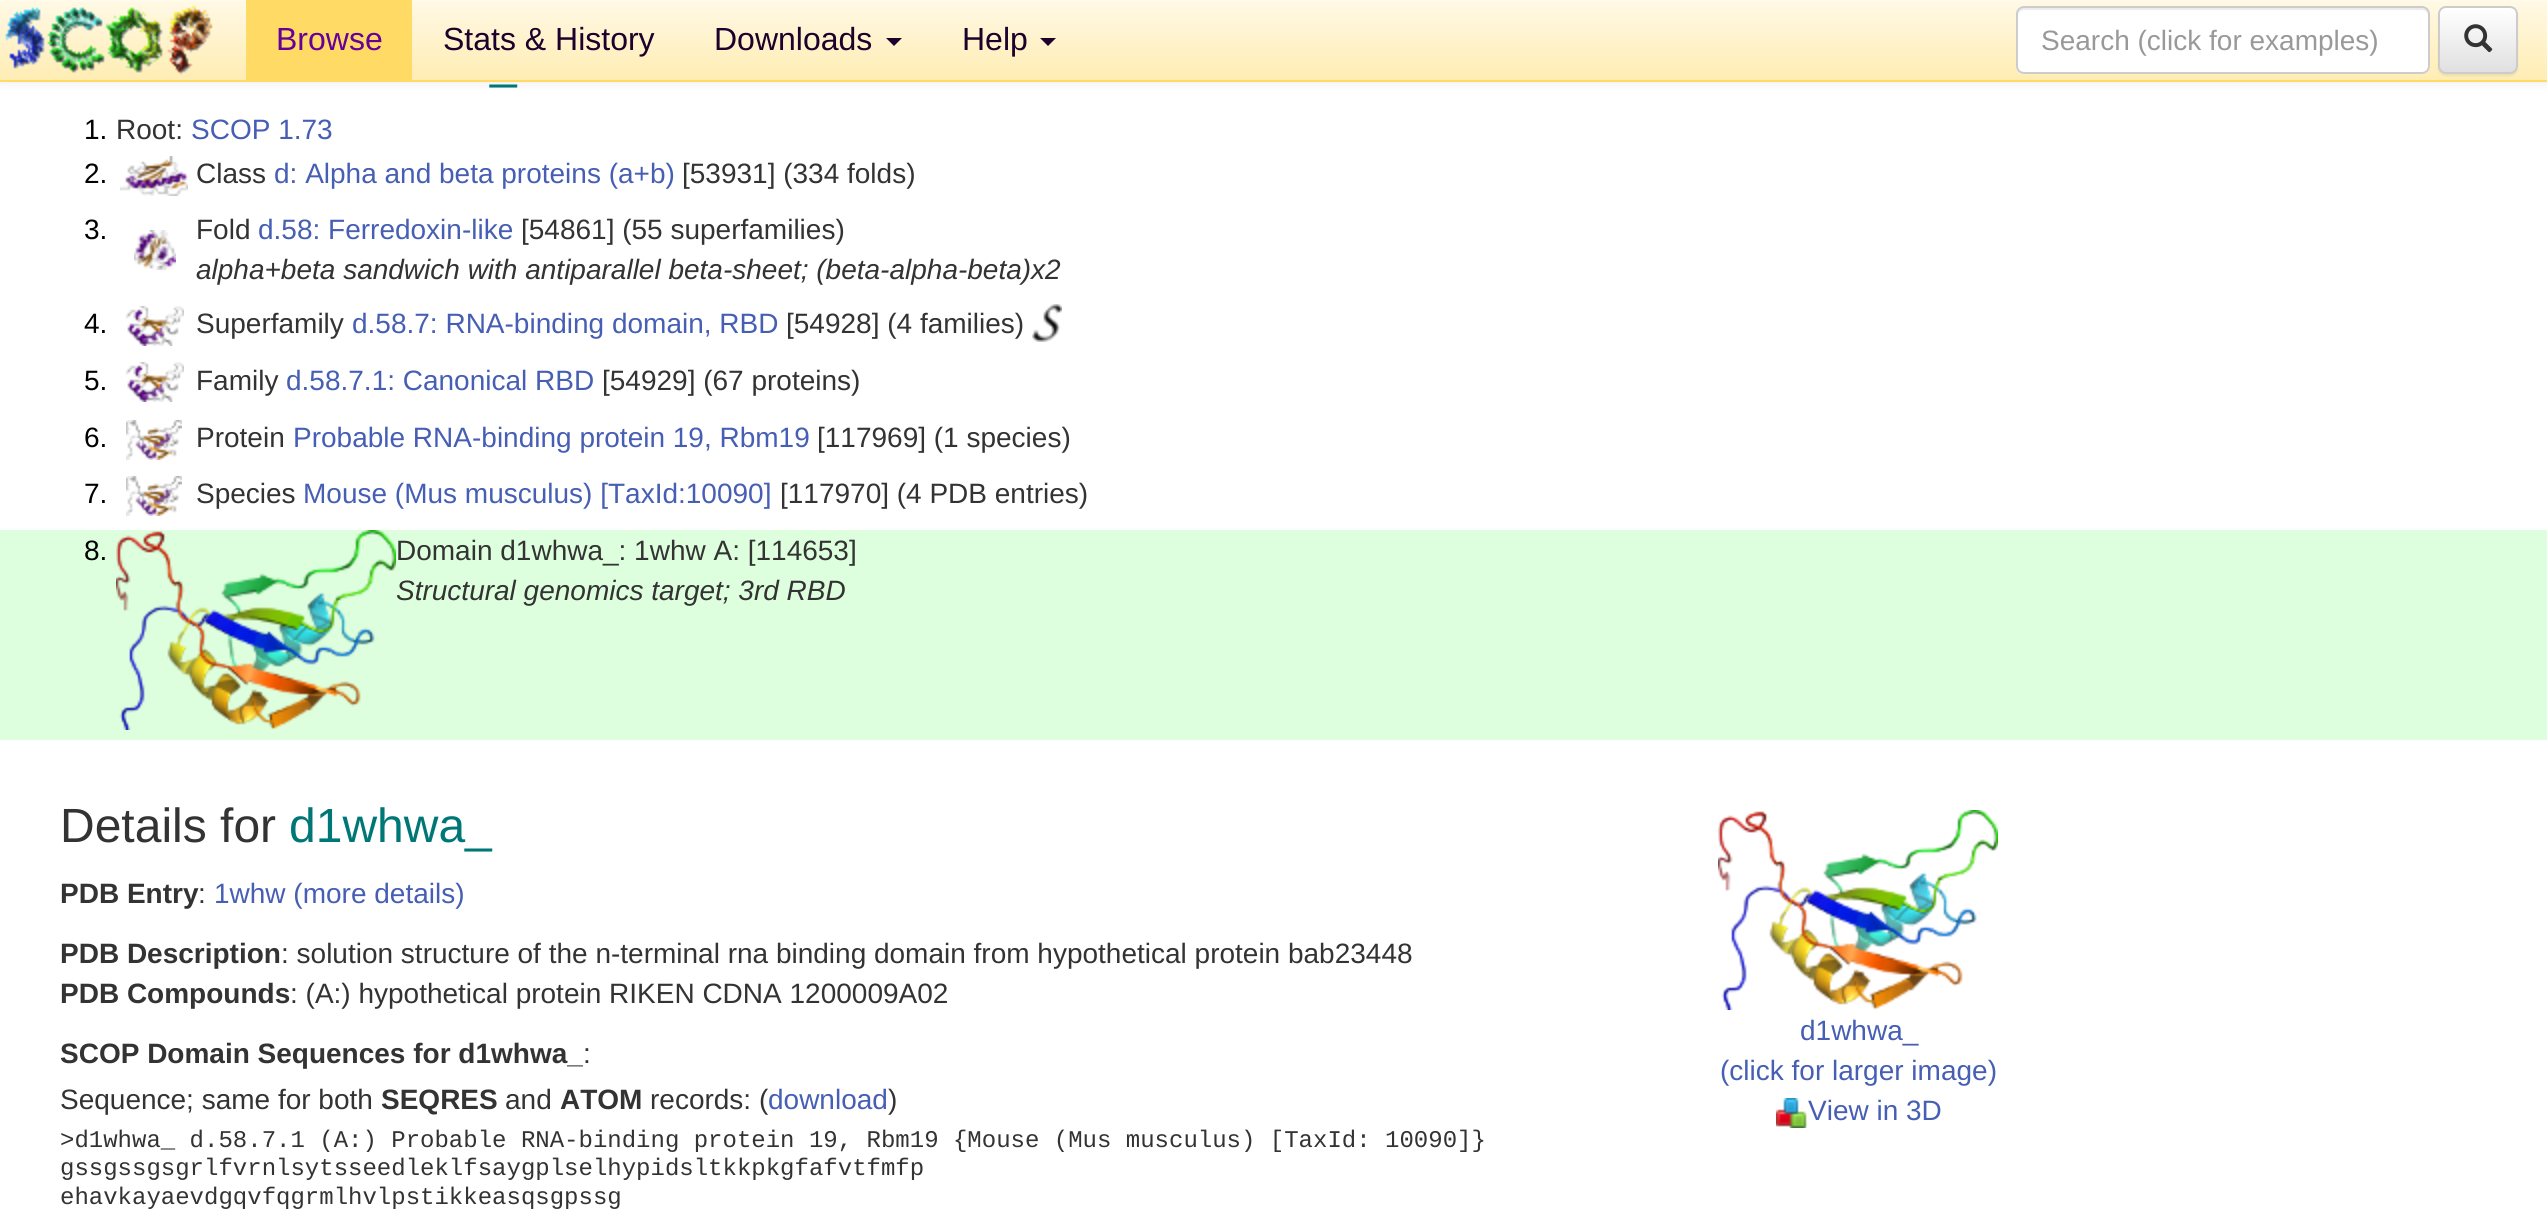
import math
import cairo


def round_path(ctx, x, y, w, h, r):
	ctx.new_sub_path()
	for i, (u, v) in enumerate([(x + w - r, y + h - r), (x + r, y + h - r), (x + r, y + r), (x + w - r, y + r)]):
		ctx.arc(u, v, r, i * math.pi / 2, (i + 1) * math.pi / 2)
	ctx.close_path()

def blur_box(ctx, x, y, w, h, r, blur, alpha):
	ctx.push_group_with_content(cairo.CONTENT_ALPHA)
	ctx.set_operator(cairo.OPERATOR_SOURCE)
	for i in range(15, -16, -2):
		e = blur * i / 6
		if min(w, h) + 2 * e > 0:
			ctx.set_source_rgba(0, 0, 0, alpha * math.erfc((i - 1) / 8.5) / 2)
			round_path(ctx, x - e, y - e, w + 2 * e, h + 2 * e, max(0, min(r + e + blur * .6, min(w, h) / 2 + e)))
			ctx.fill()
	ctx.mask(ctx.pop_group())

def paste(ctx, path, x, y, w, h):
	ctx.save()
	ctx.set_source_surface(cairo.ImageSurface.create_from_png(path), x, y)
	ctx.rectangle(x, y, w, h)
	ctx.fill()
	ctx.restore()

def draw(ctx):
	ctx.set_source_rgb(1, 1, 1)
	ctx.paint()
	ctx.set_source_rgb(0, 0, 0)
	blur_box(ctx, 0, 2, 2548, 82, 0, 5, 0.07)
	gradient = cairo.LinearGradient(1274, 0, 1274, 80)
	gradient.add_color_stop_rgba(0, 1, 0.976, 0.902, 1)
	gradient.add_color_stop_rgba(1, 1, 0.929, 0.702, 1)
	ctx.set_source(gradient)
	ctx.rectangle(0, 2, 2547, 78)
	ctx.fill()
	ctx.set_source_rgb(1, 0.98, 0.914)
	ctx.rectangle(0, 0, 2547, 2)
	ctx.fill()
	ctx.set_source_rgb(1, 0.855, 0.396)
	ctx.rectangle(0, 80, 2547, 2)
	ctx.fill()
	paste(ctx, 'media/1.png', 5, 5, 208, 70)
	ctx.rectangle(246, 0, 166, 80)
	ctx.fill()
	ctx.select_font_face('Liberation Sans')
	ctx.set_font_size(32)
	ctx.set_source_rgb(0.4, 0, 0.6)
	ctx.move_to(276, 50)
	ctx.show_text('Browse')
	ctx.set_source_rgb(0.114, 0, 0.169)
	ctx.move_to(443, 50)
	ctx.show_text('Stats & History')
	ctx.move_to(714, 50)
	ctx.show_text('Downloads')
	ctx.new_path()
	ctx.move_to(886, 38)
	ctx.line_to(902, 38)
	ctx.line_to(894, 46)
	ctx.close_path()
	ctx.fill()
	ctx.move_to(962, 50)
	ctx.show_text('Help')
	ctx.new_path()
	ctx.move_to(1040, 38)
	ctx.line_to(1056, 38)
	ctx.line_to(1048, 46)
	ctx.close_path()
	ctx.fill()
	ctx.set_source_rgb(1, 1, 1)
	round_path(ctx, 2016, 6, 414, 68, 8)
	ctx.fill()
	ctx.set_source_rgb(0.925, 0.925, 0.925)
	ctx.new_path()
	ctx.move_to(2024, 10)
	ctx.line_to(2422, 10)
	ctx.curve_to(2425, 10, 2428, 13, 2428, 16)
	ctx.curve_to(2428, 12, 2427, 8, 2422, 8)
	ctx.line_to(2024, 8)
	ctx.curve_to(2019, 8, 2018, 12, 2018, 16)
	ctx.curve_to(2018, 13, 2021, 10, 2024, 10)
	ctx.close_path()
	ctx.fill()
	round_path(ctx, 2017, 7, 412, 66, 7)
	ctx.set_source_rgb(0.8, 0.8, 0.8)
	ctx.stroke()
	ctx.set_font_size(28)
	ctx.set_source_rgb(0.6, 0.6, 0.6)
	ctx.move_to(2041, 50)
	ctx.show_text('Search (click for examples)')
	ctx.set_source_rgb(0, 0, 0)
	blur_box(ctx, 2438, 8, 80, 68, 8, 1, 0.07)
	ctx.save()
	round_path(ctx, 2438, 6, 80, 68, 8)
	ctx.clip()
	gradient = cairo.LinearGradient(2478, 8, 2478, 72)
	gradient.add_color_stop_rgba(0, 1, 1, 1, 1)
	gradient.add_color_stop_rgba(1, 0.878, 0.878, 0.878, 1)
	ctx.set_source(gradient)
	ctx.rectangle(2438, 8, 80, 64)
	ctx.fill()
	ctx.restore()
	ctx.set_source_rgb(1, 1, 1)
	ctx.new_path()
	ctx.move_to(2446, 10)
	ctx.line_to(2510, 10)
	ctx.curve_to(2513, 10, 2516, 13, 2516, 16)
	ctx.curve_to(2516, 6, 2508, 8, 2499, 8)
	ctx.line_to(2457, 8)
	ctx.curve_to(2448, 8, 2440, 6, 2440, 16)
	ctx.curve_to(2440, 13, 2443, 10, 2446, 10)
	ctx.close_path()
	ctx.fill()
	round_path(ctx, 2439, 7, 78, 66, 7)
	ctx.set_source_rgb(0.8, 0.8, 0.8)
	ctx.stroke()
	paste(ctx, 'media/2.png', 2464, 24, 29, 29)
	ctx.set_font_size(48)
	ctx.set_source_rgb(0, 0.467, 0.467)
	ctx.move_to(490, 78)
	ctx.show_text('_')
	ctx.set_font_size(28)
	ctx.set_source_rgb(0, 0, 0)
	ctx.move_to(84, 139)
	ctx.show_text('1.')
	ctx.set_source_rgb(0.2, 0.2, 0.2)
	ctx.move_to(116, 139)
	ctx.show_text('Root:')
	ctx.set_source_rgb(0.275, 0.369, 0.706)
	ctx.move_to(191, 139)
	ctx.show_text('SCOP 1.73')
	ctx.set_source_rgb(0, 0, 0)
	ctx.move_to(84, 183)
	ctx.show_text('2.')
	paste(ctx, 'media/3.png', 120, 156, 68, 40)
	ctx.set_source_rgb(0.2, 0.2, 0.2)
	ctx.move_to(196, 183)
	ctx.show_text('Class')
	ctx.set_source_rgb(0.275, 0.369, 0.706)
	ctx.move_to(274, 183)
	ctx.show_text('d: Alpha and beta proteins (a+b)')
	ctx.set_source_rgb(0.2, 0.2, 0.2)
	ctx.move_to(682, 183)
	ctx.show_text('[53931] (334 folds)')
	ctx.set_source_rgb(0, 0, 0)
	ctx.move_to(84, 239)
	ctx.show_text('3.')
	paste(ctx, 'media/4.png', 134, 230, 42, 40)
	ctx.set_source_rgb(0.2, 0.2, 0.2)
	ctx.move_to(196, 239)
	ctx.show_text('Fold')
	ctx.set_source_rgb(0.275, 0.369, 0.706)
	ctx.move_to(258, 239)
	ctx.show_text('d.58: Ferredoxin-like')
	ctx.set_source_rgb(0.2, 0.2, 0.2)
	ctx.move_to(521, 239)
	ctx.show_text('[54861] (55 superfamilies)')
	ctx.select_font_face('Liberation Sans', cairo.FONT_SLANT_ITALIC)
	ctx.move_to(196, 279)
	ctx.show_text('alpha+beta sandwich with antiparallel beta-sheet; (beta-alpha-beta)x2')
	ctx.select_font_face('Liberation Sans')
	ctx.set_source_rgb(0, 0, 0)
	ctx.move_to(84, 333)
	ctx.show_text('4.')
	paste(ctx, 'media/5.png', 126, 306, 58, 40)
	ctx.set_source_rgb(0.2, 0.2, 0.2)
	ctx.move_to(196, 333)
	ctx.show_text('Superfamily')
	ctx.set_source_rgb(0.275, 0.369, 0.706)
	ctx.move_to(352, 333)
	ctx.show_text('d.58.7: RNA-binding domain, RBD')
	ctx.set_source_rgb(0.2, 0.2, 0.2)
	ctx.move_to(786, 333)
	ctx.show_text('[54928] (4 families)')
	paste(ctx, 'media/6.png', 1032, 304, 30, 38)
	ctx.set_source_rgb(0, 0, 0)
	ctx.move_to(84, 390)
	ctx.show_text('5.')
	paste(ctx, 'media/5.png', 126, 362, 58, 40)
	ctx.set_source_rgb(0.2, 0.2, 0.2)
	ctx.move_to(196, 390)
	ctx.show_text('Family')
	ctx.set_source_rgb(0.275, 0.369, 0.706)
	ctx.move_to(286, 390)
	ctx.show_text('d.58.7.1: Canonical RBD')
	ctx.set_source_rgb(0.2, 0.2, 0.2)
	ctx.move_to(602, 390)
	ctx.show_text('[54929] (67 proteins)')
	ctx.set_source_rgb(0, 0, 0)
	ctx.move_to(84, 447)
	ctx.show_text('6.')
	paste(ctx, 'media/7.png', 126, 420, 56, 40)
	ctx.set_source_rgb(0.2, 0.2, 0.2)
	ctx.move_to(196, 447)
	ctx.show_text('Protein')
	ctx.set_source_rgb(0.275, 0.369, 0.706)
	ctx.move_to(293, 447)
	ctx.show_text('Probable RNA-binding protein 19, Rbm19')
	ctx.set_source_rgb(0.2, 0.2, 0.2)
	ctx.move_to(817, 447)
	ctx.show_text('[117969] (1 species)')
	ctx.set_source_rgb(0, 0, 0)
	ctx.move_to(84, 503)
	ctx.show_text('7.')
	paste(ctx, 'media/7.png', 126, 476, 56, 40)
	ctx.set_source_rgb(0.2, 0.2, 0.2)
	ctx.move_to(196, 503)
	ctx.show_text('Species')
	ctx.set_source_rgb(0.275, 0.369, 0.706)
	ctx.move_to(303, 503)
	ctx.show_text('Mouse (Mus musculus) [TaxId:10090]')
	ctx.set_source_rgb(0.2, 0.2, 0.2)
	ctx.move_to(780, 503)
	ctx.show_text('[117970] (4 PDB entries)')
	ctx.set_source_rgb(0.867, 1, 0.867)
	ctx.rectangle(0, 530, 2547, 210)
	ctx.fill()
	ctx.set_source_rgb(0, 0, 0)
	ctx.move_to(84, 560)
	ctx.show_text('8.')
	paste(ctx, 'media/8.png', 116, 530, 280, 200)
	ctx.set_source_rgb(0.2, 0.2, 0.2)
	ctx.move_to(396, 560)
	ctx.show_text('Domain d1whwa_: 1whw A: [114653]')
	ctx.select_font_face('Liberation Sans', cairo.FONT_SLANT_ITALIC)
	ctx.move_to(396, 600)
	ctx.show_text('Structural genomics target; 3rd RBD')
	ctx.select_font_face('Liberation Sans')
	ctx.set_font_size(48)
	ctx.move_to(60, 842)
	ctx.show_text('Details for')
	ctx.set_source_rgb(0, 0.467, 0.467)
	ctx.move_to(289, 842)
	ctx.show_text('d1whwa_')
	ctx.select_font_face('Liberation Sans', cairo.FONT_SLANT_NORMAL, cairo.FONT_WEIGHT_BOLD)
	ctx.set_font_size(28)
	ctx.set_source_rgb(0.2, 0.2, 0.2)
	ctx.move_to(60, 903)
	ctx.show_text('PDB Entry')
	ctx.select_font_face('Liberation Sans')
	ctx.move_to(198, 903)
	ctx.show_text(':')
	ctx.set_source_rgb(0.275, 0.369, 0.706)
	ctx.move_to(214, 903)
	ctx.show_text('1whw (more details)')
	ctx.select_font_face('Liberation Sans', cairo.FONT_SLANT_NORMAL, cairo.FONT_WEIGHT_BOLD)
	ctx.set_source_rgb(0.2, 0.2, 0.2)
	ctx.move_to(60, 963)
	ctx.show_text('PDB Description')
	ctx.select_font_face('Liberation Sans')
	ctx.move_to(281, 963)
	ctx.show_text(': solution structure of the n-terminal rna binding domain from hypothetical protein bab23448')
	ctx.select_font_face('Liberation Sans', cairo.FONT_SLANT_NORMAL, cairo.FONT_WEIGHT_BOLD)
	ctx.move_to(60, 1003)
	ctx.show_text('PDB Compounds')
	ctx.select_font_face('Liberation Sans')
	ctx.move_to(290, 1003)
	ctx.show_text(': (A:) hypothetical protein RIKEN CDNA 1200009A02')
	ctx.select_font_face('Liberation Sans', cairo.FONT_SLANT_NORMAL, cairo.FONT_WEIGHT_BOLD)
	ctx.move_to(60, 1063)
	ctx.show_text('SCOP Domain Sequences for d1whwa_')
	ctx.select_font_face('Liberation Sans')
	ctx.move_to(583, 1063)
	ctx.show_text(':')
	ctx.move_to(60, 1109)
	ctx.show_text('Sequence; same for both')
	ctx.select_font_face('Liberation Sans', cairo.FONT_SLANT_NORMAL, cairo.FONT_WEIGHT_BOLD)
	ctx.move_to(381, 1109)
	ctx.show_text('SEQRES')
	ctx.select_font_face('Liberation Sans')
	ctx.move_to(505, 1109)
	ctx.show_text('and')
	ctx.select_font_face('Liberation Sans', cairo.FONT_SLANT_NORMAL, cairo.FONT_WEIGHT_BOLD)
	ctx.move_to(560, 1109)
	ctx.show_text('ATOM')
	ctx.select_font_face('Liberation Sans')
	ctx.move_to(650, 1109)
	ctx.show_text('records: (')
	ctx.set_source_rgb(0.275, 0.369, 0.706)
	ctx.move_to(768, 1109)
	ctx.show_text('download')
	ctx.set_source_rgb(0.2, 0.2, 0.2)
	ctx.move_to(888, 1109)
	ctx.show_text(')')
	ctx.select_font_face('Liberation Mono')
	ctx.set_font_size(24)
	for x, y, s in [
		(60, 1147, '>d1whwa_ d.58.7.1 (A:) Probable RNA-binding protein 19, Rbm19 {Mouse (Mus musculus) [TaxId: 10090]}'),
		(60, 1175, 'gssgssgsgrlfvrnlsytsseedleklfsaygplselhypidsltkkpkgfafvtfmfp'),
		(60, 1204, 'ehavkayaevdgqvfqgrmlhvlpstikkeasqsgpssg'),
	]:
		ctx.move_to(x, y)
		ctx.show_text(s)
	paste(ctx, 'media/9.png', 1718, 810, 280, 200)
	ctx.select_font_face('Liberation Sans')
	ctx.set_font_size(28)
	ctx.set_source_rgb(0.275, 0.369, 0.706)
	ctx.move_to(1800, 1040)
	ctx.show_text('d1whwa_')
	ctx.move_to(1720, 1080)
	ctx.show_text('(click for larger image)')
	paste(ctx, 'media/10.png', 1776, 1098, 31, 30)
	ctx.move_to(1808, 1120)
	ctx.show_text('View in 3D')


surface = cairo.ImageSurface(cairo.FORMAT_RGB24, 2547, 1209)
ctx = cairo.Context(surface)
options = cairo.FontOptions()
options.set_hint_metrics(cairo.HINT_METRICS_OFF)
options.set_hint_style(cairo.HINT_STYLE_NONE)
ctx.set_font_options(options)
ctx.set_miter_limit(4)
draw(ctx)
surface.write_to_png('image.png')
